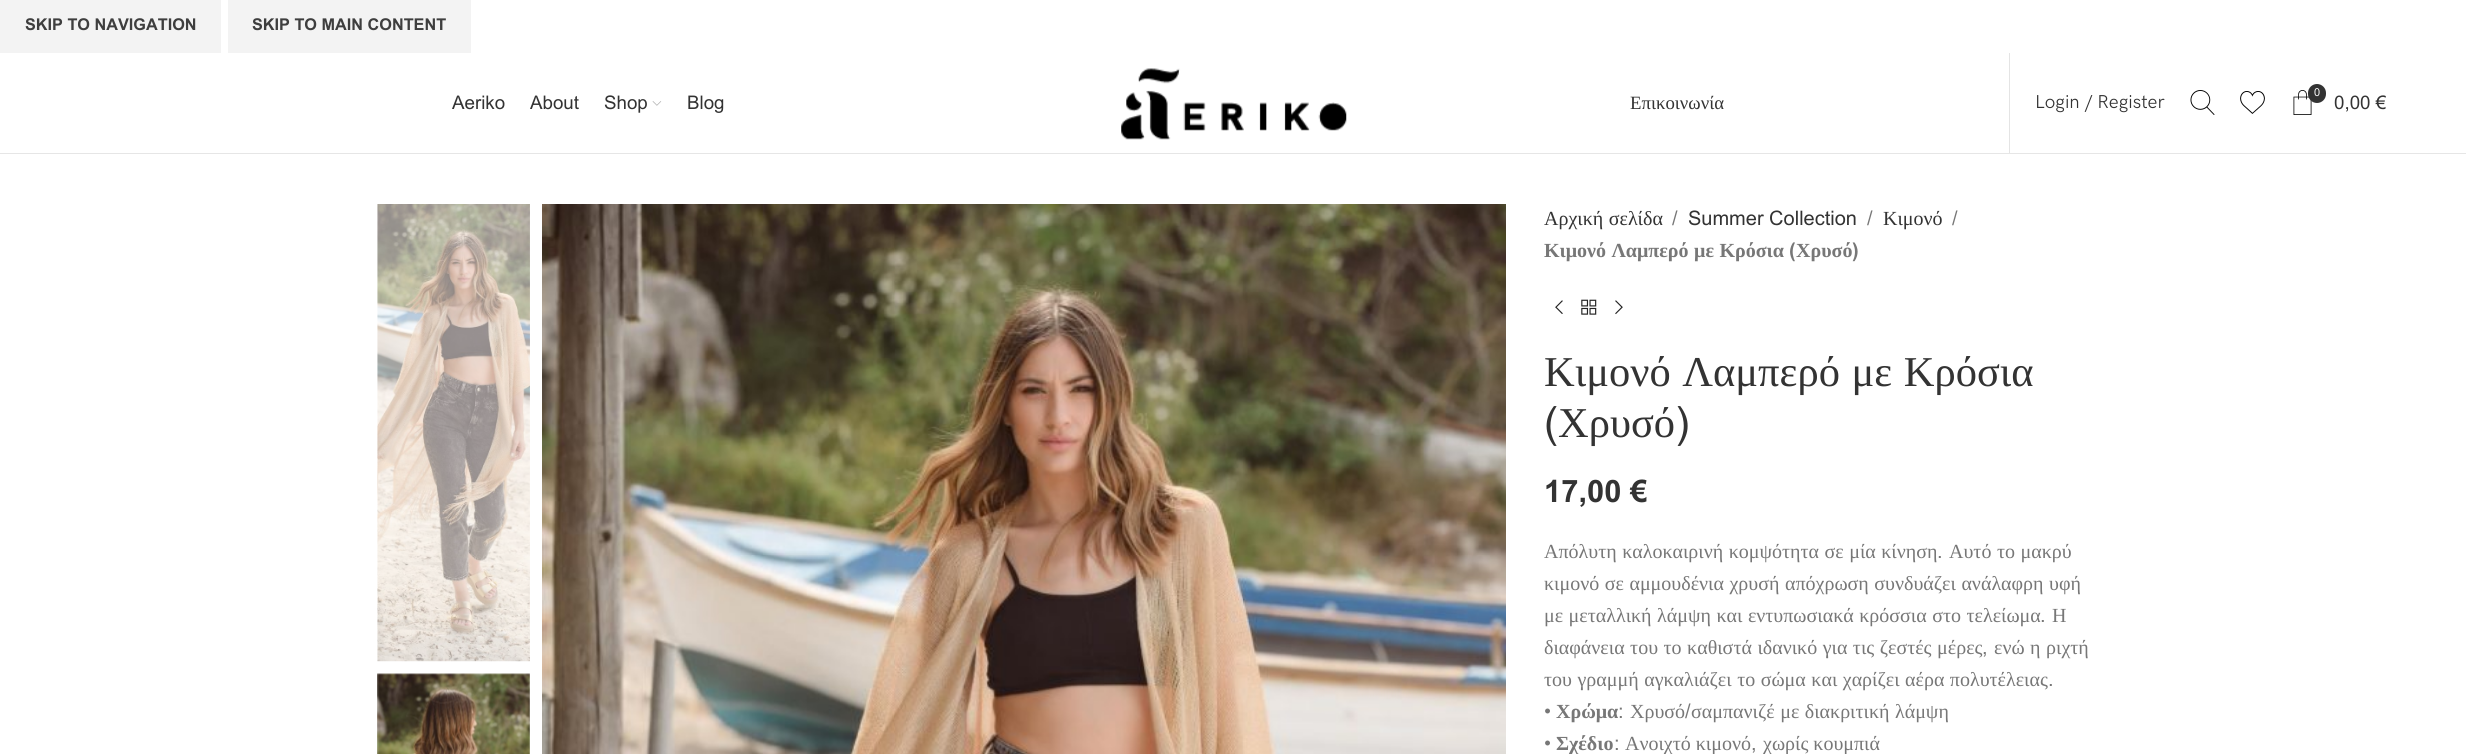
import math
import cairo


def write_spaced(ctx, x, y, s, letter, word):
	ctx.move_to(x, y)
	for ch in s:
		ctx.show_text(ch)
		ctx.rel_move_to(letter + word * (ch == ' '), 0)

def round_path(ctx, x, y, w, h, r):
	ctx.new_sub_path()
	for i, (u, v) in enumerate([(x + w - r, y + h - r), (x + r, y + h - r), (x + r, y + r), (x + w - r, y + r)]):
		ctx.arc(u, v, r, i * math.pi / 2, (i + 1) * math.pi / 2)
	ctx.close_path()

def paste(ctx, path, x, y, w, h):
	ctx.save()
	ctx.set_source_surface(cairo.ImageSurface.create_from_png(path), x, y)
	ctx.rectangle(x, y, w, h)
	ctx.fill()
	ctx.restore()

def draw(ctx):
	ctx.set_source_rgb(1, 1, 1)
	ctx.paint()
	ctx.set_source_rgb(0.953, 0.953, 0.953)
	ctx.rectangle(0, 0, 221, 53)
	ctx.fill()
	ctx.select_font_face('Arial', cairo.FONT_SLANT_NORMAL, cairo.FONT_WEIGHT_BOLD)
	ctx.set_font_size(16.25)
	ctx.set_source_rgb(0.243, 0.243, 0.243)
	ctx.move_to(25, 30)
	ctx.show_text('SKIP TO NAVIGATION')
	ctx.set_source_rgb(0.953, 0.953, 0.953)
	ctx.rectangle(228, 0, 243, 53)
	ctx.fill()
	ctx.set_source_rgb(0.243, 0.243, 0.243)
	ctx.move_to(252, 30)
	ctx.show_text('SKIP TO MAIN CONTENT')
	ctx.set_source_rgb(0.902, 0.902, 0.902)
	ctx.rectangle(0, 153, 2466, 1)
	ctx.fill()
	ctx.select_font_face('Arial')
	ctx.set_font_size(18.75)
	ctx.set_source_rgb(0.2, 0.2, 0.2)
	for x, y, s in [
		(452, 109, 'Aeriko'),
		(530, 109, 'About'),
		(604, 109, 'Shop'),
	]:
		ctx.move_to(x, y)
		ctx.show_text(s)
	paste(ctx, 'media/1.png', 652, 101, 10, 5)
	ctx.move_to(687, 109)
	ctx.show_text('Blog')
	paste(ctx, 'media/2.png', 1121, 68, 226, 72)
	ctx.select_font_face('Liberation Serif')
	ctx.move_to(1630, 109)
	ctx.show_text('Επικοινωνία')
	ctx.set_source_rgb(0.894, 0.894, 0.894)
	ctx.rectangle(2009, 53, 1, 100)
	ctx.fill()
	ctx.select_font_face('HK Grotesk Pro')
	ctx.set_source_rgb(0.2, 0.2, 0.2)
	ctx.move_to(2035, 108)
	ctx.show_text('Login / Register')
	paste(ctx, 'media/3.png', 2190, 90, 25, 25)
	paste(ctx, 'media/4.png', 2240, 91, 25, 23)
	paste(ctx, 'media/5.png', 2293, 90, 19, 25)
	round_path(ctx, 2308, 84, 18, 19, 9)
	ctx.fill()
	ctx.select_font_face('Arial')
	ctx.set_font_size(11)
	ctx.set_source_rgb(1, 1, 1)
	ctx.move_to(2314, 96)
	ctx.show_text('0')
	ctx.set_font_size(18.75)
	ctx.set_source_rgb(0.2, 0.2, 0.2)
	ctx.move_to(2334, 109)
	ctx.show_text('0,00 €')
	paste(ctx, 'media/6.png', 377, 204, 153, 458)
	paste(ctx, 'media/7.png', 377, 673, 153, 81)
	paste(ctx, 'media/8.png', 542, 204, 964, 550)
	ctx.select_font_face('Liberation Serif')
	ctx.set_font_size(20)
	write_spaced(ctx, 1544, 225, 'Αρχική σελίδα', 0, 0.5)
	ctx.select_font_face('Arial')
	ctx.set_source_rgb(0.467, 0.467, 0.467)
	ctx.move_to(1672, 225)
	ctx.show_text('/')
	ctx.set_source_rgb(0.2, 0.2, 0.2)
	ctx.move_to(1688, 225)
	ctx.show_text('Summer Collection')
	ctx.set_source_rgb(0.467, 0.467, 0.467)
	ctx.move_to(1867, 225)
	ctx.show_text('/')
	ctx.select_font_face('Liberation Serif')
	ctx.set_source_rgb(0.2, 0.2, 0.2)
	ctx.move_to(1883, 225)
	ctx.show_text('Κιμονό')
	ctx.select_font_face('Arial')
	ctx.set_source_rgb(0.467, 0.467, 0.467)
	ctx.move_to(1952, 225)
	ctx.show_text('/')
	ctx.select_font_face('Liberation Serif', cairo.FONT_SLANT_NORMAL, cairo.FONT_WEIGHT_BOLD)
	write_spaced(ctx, 1544, 257, 'Κιμονό Λαμπερό με Κρόσια', 0, 0.5)
	ctx.select_font_face('Arial', cairo.FONT_SLANT_NORMAL, cairo.FONT_WEIGHT_BOLD)
	ctx.move_to(1789, 257)
	ctx.show_text('(')
	ctx.select_font_face('Liberation Serif', cairo.FONT_SLANT_NORMAL, cairo.FONT_WEIGHT_BOLD)
	ctx.move_to(1796, 257)
	ctx.show_text('Χρυσό')
	ctx.select_font_face('Arial', cairo.FONT_SLANT_NORMAL, cairo.FONT_WEIGHT_BOLD)
	ctx.move_to(1852, 257)
	ctx.show_text(')')
	paste(ctx, 'media/9.png', 1555, 300, 8, 14)
	paste(ctx, 'media/10.png', 1581, 299, 16, 16)
	paste(ctx, 'media/11.png', 1615, 300, 8, 15)
	ctx.select_font_face('Liberation Serif')
	ctx.set_font_size(42.5)
	ctx.set_source_rgb(0.2, 0.2, 0.2)
	write_spaced(ctx, 1544, 386, 'Κιμονό Λαμπερό με Κρόσια', 0, 1)
	ctx.select_font_face('Arial')
	ctx.move_to(1544, 437)
	ctx.show_text('(')
	ctx.select_font_face('Liberation Serif')
	ctx.move_to(1558, 437)
	ctx.show_text('Χρυσό')
	ctx.select_font_face('Arial')
	ctx.move_to(1675, 437)
	ctx.show_text(')')
	ctx.select_font_face('Arial', cairo.FONT_SLANT_NORMAL, cairo.FONT_WEIGHT_BOLD)
	ctx.set_font_size(31)
	ctx.move_to(1544, 502)
	ctx.show_text('17,00 €')
	ctx.select_font_face('Liberation Serif')
	ctx.set_font_size(20)
	ctx.set_source_rgb(0.467, 0.467, 0.467)
	write_spaced(ctx, 1544, 558, 'Απόλυτη καλοκαιρινή κομψότητα σε μία κίνηση', 0, 0.5)
	ctx.select_font_face('Arial')
	ctx.move_to(1937, 558)
	ctx.show_text('.')
	ctx.select_font_face('Liberation Serif')
	for x, y, s in [
		(1949, 558, 'Αυτό το μακρύ'),
		(1544, 590, 'κιμονό σε αμμουδένια χρυσή απόχρωση συνδυάζει ανάλαφρη υφή'),
		(1544, 622, 'με μεταλλική λάμψη και εντυπωσιακά κρόσσια στο τελείωμα'),
	]:
		write_spaced(ctx, x, y, s, 0, 0.5)
	ctx.select_font_face('Arial')
	ctx.move_to(2040, 622)
	ctx.show_text('.')
	ctx.select_font_face('Liberation Serif')
	ctx.move_to(2052, 622)
	ctx.show_text('Η')
	write_spaced(ctx, 1544, 654, 'διαφάνεια του το καθιστά ιδανικό για τις ζεστές μέρες', 0, 0.5)
	ctx.select_font_face('Arial')
	ctx.move_to(1982, 654)
	ctx.show_text(',')
	ctx.select_font_face('Liberation Serif')
	write_spaced(ctx, 1994, 654, 'ενώ η ριχτή', 0, 0.5)
	write_spaced(ctx, 1544, 686, 'του γραμμή αγκαλιάζει το σώμα και χαρίζει αέρα πολυτέλειας', 0, 0.5)
	ctx.select_font_face('Arial')
	ctx.move_to(2048, 686)
	ctx.show_text('.')
	ctx.move_to(1544, 718)
	ctx.show_text('•')
	ctx.select_font_face('Liberation Serif', cairo.FONT_SLANT_NORMAL, cairo.FONT_WEIGHT_BOLD)
	ctx.move_to(1556, 718)
	ctx.show_text('Χρώμα')
	ctx.select_font_face('Arial')
	ctx.move_to(1618, 718)
	ctx.show_text(':')
	ctx.select_font_face('Liberation Serif')
	ctx.move_to(1630, 718)
	ctx.show_text('Χρυσό')
	ctx.select_font_face('Arial')
	ctx.move_to(1685, 718)
	ctx.show_text('/')
	ctx.select_font_face('Liberation Serif')
	write_spaced(ctx, 1691, 718, 'σαμπανιζέ με διακριτική λάμψη', 0, 0.5)
	ctx.select_font_face('Arial')
	ctx.move_to(1544, 750)
	ctx.show_text('•')
	ctx.select_font_face('Liberation Serif', cairo.FONT_SLANT_NORMAL, cairo.FONT_WEIGHT_BOLD)
	ctx.move_to(1556, 750)
	ctx.show_text('Σχέδιο')
	ctx.select_font_face('Arial')
	ctx.move_to(1614, 750)
	ctx.show_text(':')
	ctx.select_font_face('Liberation Serif')
	ctx.move_to(1625, 750)
	ctx.show_text('Ανοιχτό κιμονό')
	ctx.move_to(1763, 750)
	ctx.show_text('χωρίς κουμπιά')
	ctx.select_font_face('Arial')
	ctx.move_to(1751, 750)
	ctx.show_text(',')


surface = cairo.ImageSurface(cairo.FORMAT_RGB24, 2466, 754)
ctx = cairo.Context(surface)
options = cairo.FontOptions()
options.set_hint_metrics(cairo.HINT_METRICS_OFF)
options.set_hint_style(cairo.HINT_STYLE_NONE)
ctx.set_font_options(options)
ctx.set_miter_limit(4)
draw(ctx)
surface.write_to_png('image.png')
